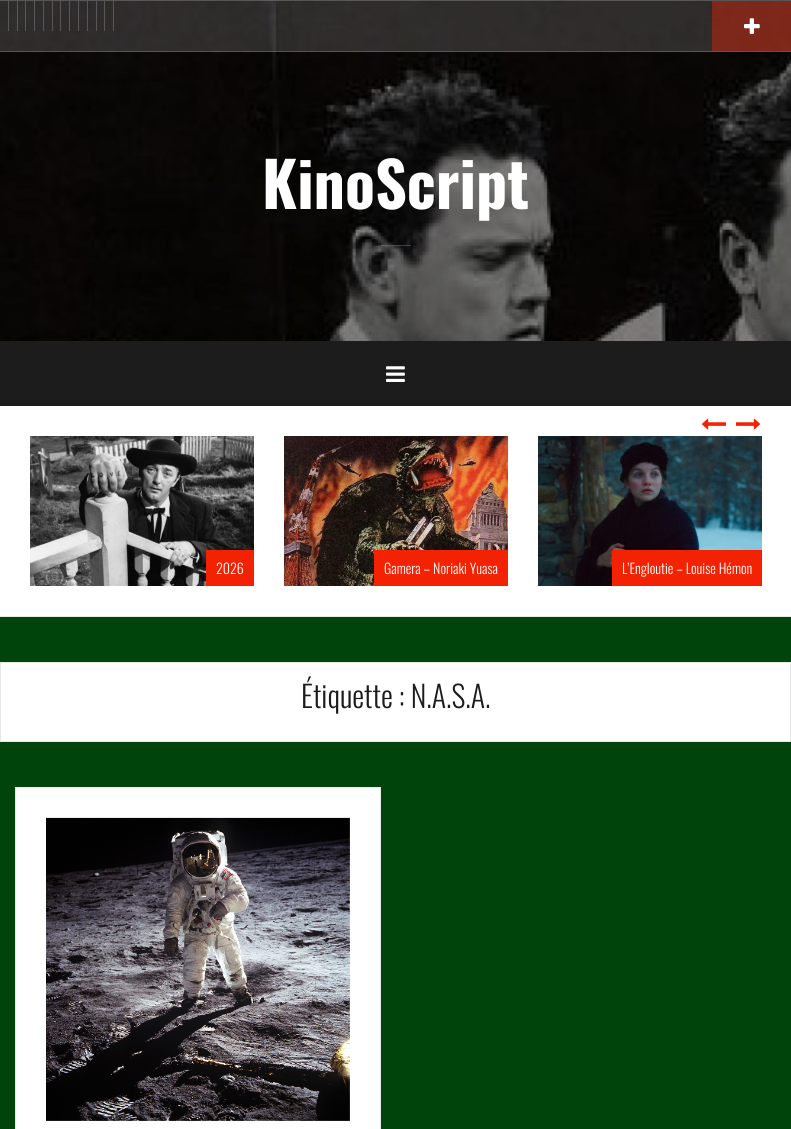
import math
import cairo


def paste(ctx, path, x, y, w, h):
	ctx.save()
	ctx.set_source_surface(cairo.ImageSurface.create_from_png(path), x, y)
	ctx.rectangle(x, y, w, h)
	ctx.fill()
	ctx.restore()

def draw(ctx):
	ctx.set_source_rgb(0, 0.267, 0.043)
	ctx.paint()
	paste(ctx, 'media/1.png', 0, 0, 791, 341)
	ctx.set_source_rgba(1, 1, 1, 0.15)
	ctx.rectangle(0, 0, 791, 52)
	ctx.fill()
	ctx.set_source_rgba(1, 1, 1, 0.2)
	ctx.rectangle(0, 0, 791, 1)
	ctx.fill()
	ctx.rectangle(0, 51, 791, 1)
	ctx.fill()
	ctx.set_source_rgb(0.345, 0.337, 0.337)
	ctx.rectangle(8, 1, 1, 30)
	ctx.fill()
	ctx.set_source_rgba(1, 1, 1, 0.2)
	ctx.rectangle(17, 1, 1, 30)
	ctx.fill()
	ctx.rectangle(25, 1, 1, 30)
	ctx.fill()
	ctx.set_source_rgb(0.349, 0.341, 0.341)
	ctx.rectangle(34, 1, 1, 30)
	ctx.rectangle(43, 1, 1, 30)
	ctx.fill()
	ctx.set_source_rgb(0.345, 0.337, 0.337)
	ctx.rectangle(52, 1, 1, 30)
	ctx.rectangle(60, 1, 1, 30)
	ctx.rectangle(69, 1, 1, 30)
	ctx.fill()
	ctx.set_source_rgba(1, 1, 1, 0.2)
	ctx.rectangle(78, 1, 1, 30)
	ctx.fill()
	ctx.rectangle(87, 1, 1, 30)
	ctx.fill()
	ctx.rectangle(96, 1, 1, 30)
	ctx.fill()
	ctx.set_source_rgb(0.349, 0.341, 0.337)
	ctx.rectangle(104, 1, 1, 30)
	ctx.fill()
	ctx.set_source_rgb(0.345, 0.341, 0.333)
	ctx.rectangle(113, 1, 1, 30)
	ctx.fill()
	ctx.set_source_rgba(0.949, 0.133, 0.008, 0.4)
	ctx.rectangle(712, 1, 79, 50)
	ctx.fill()
	paste(ctx, 'media/2.png', 744, 18, 16, 16)
	ctx.select_font_face('Oswald', cairo.FONT_SLANT_NORMAL, cairo.FONT_WEIGHT_BOLD)
	ctx.set_font_size(62)
	ctx.set_source_rgb(1, 1, 1)
	ctx.move_to(262, 209)
	ctx.show_text('KinoScript')
	ctx.set_source_rgba(1, 1, 1, 0.2)
	ctx.rectangle(381, 245, 30, 1)
	ctx.fill()
	ctx.set_source_rgb(0.11, 0.11, 0.11)
	ctx.rectangle(0, 341, 791, 65)
	ctx.fill()
	paste(ctx, 'media/3.png', 386, 366, 19, 16)
	ctx.set_source_rgb(1, 1, 1)
	ctx.rectangle(0, 406, 791, 210)
	ctx.fill()
	ctx.set_source_rgb(0.91, 0.91, 0.91)
	ctx.rectangle(0, 616, 791, 1)
	ctx.fill()
	paste(ctx, 'media/4.png', 701, 418, 25, 12)
	paste(ctx, 'media/5.png', 736, 418, 24, 12)
	paste(ctx, 'media/6.png', 30, 436, 224, 150)
	ctx.set_source_rgb(0.949, 0.133, 0.008)
	ctx.rectangle(206, 550, 48, 36)
	ctx.fill()
	ctx.select_font_face('Oswald Light')
	ctx.set_font_size(14)
	ctx.set_source_rgb(1, 1, 1)
	ctx.move_to(216, 574)
	ctx.show_text('2026')
	paste(ctx, 'media/7.png', 284, 436, 224, 150)
	ctx.set_source_rgb(0.949, 0.133, 0.008)
	ctx.rectangle(374, 550, 134, 36)
	ctx.fill()
	ctx.set_source_rgb(1, 1, 1)
	ctx.move_to(384, 574)
	ctx.show_text('Gamera – Noriaki Yuasa')
	paste(ctx, 'media/8.png', 538, 436, 224, 150)
	ctx.set_source_rgb(0.949, 0.133, 0.008)
	ctx.rectangle(612, 550, 150, 36)
	ctx.fill()
	ctx.set_source_rgb(1, 1, 1)
	ctx.move_to(622, 574)
	ctx.show_text('L’Engloutie – Louise Hémon')
	ctx.rectangle(0.5, 662.5, 790, 79)
	ctx.fill_preserve()
	ctx.set_source_rgb(0.91, 0.91, 0.91)
	ctx.set_line_width(1)
	ctx.stroke()
	ctx.set_font_size(30)
	ctx.set_source_rgb(0.11, 0.11, 0.11)
	ctx.move_to(301, 708)
	ctx.show_text('Étiquette : N.A.S.A.')
	ctx.set_source_rgb(1, 1, 1)
	ctx.rectangle(15.5, 787.5, 365, 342)
	ctx.fill_preserve()
	ctx.set_source_rgb(0.91, 0.91, 0.91)
	ctx.stroke()
	paste(ctx, 'media/9.png', 46, 817, 304, 304)


surface = cairo.ImageSurface(cairo.FORMAT_RGB24, 791, 1129)
ctx = cairo.Context(surface)
options = cairo.FontOptions()
options.set_hint_metrics(cairo.HINT_METRICS_OFF)
options.set_hint_style(cairo.HINT_STYLE_NONE)
ctx.set_font_options(options)
ctx.set_miter_limit(4)
draw(ctx)
surface.write_to_png('image.png')
